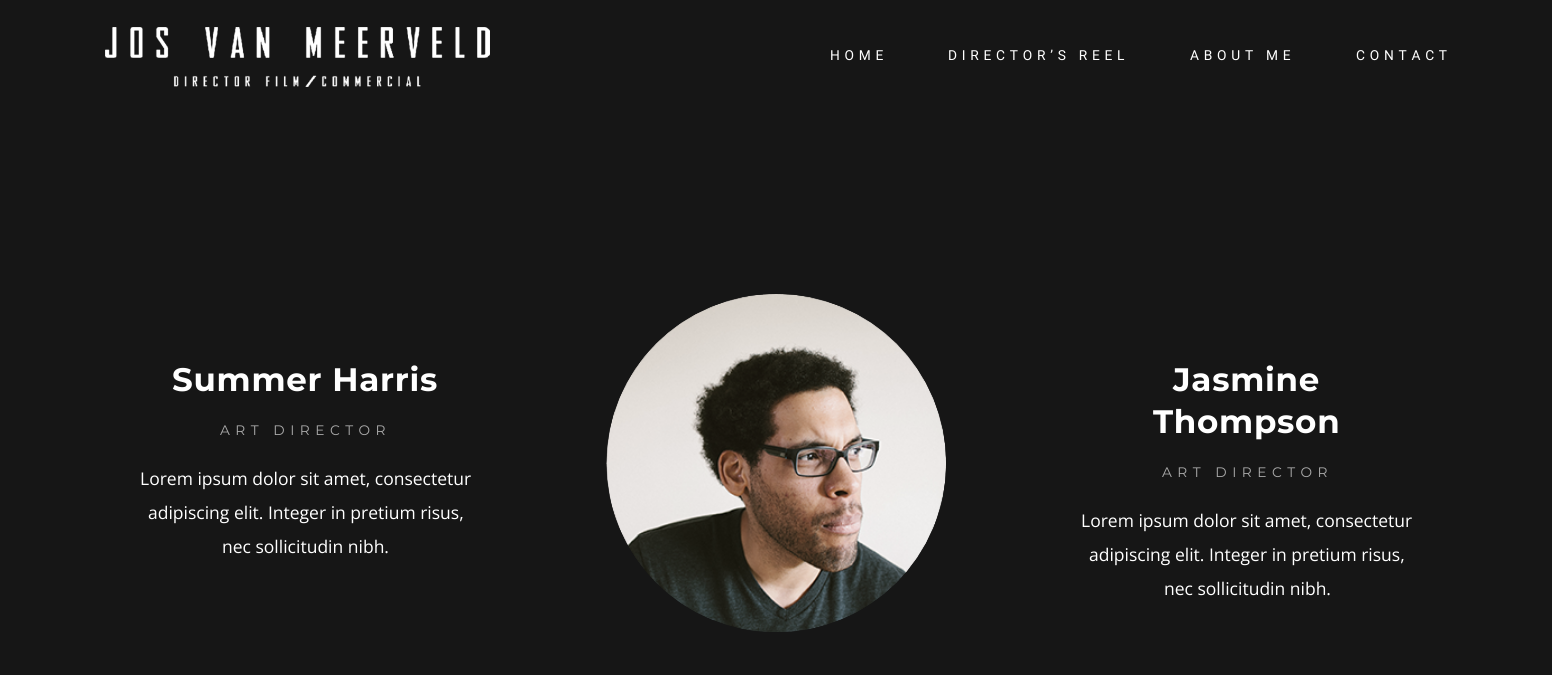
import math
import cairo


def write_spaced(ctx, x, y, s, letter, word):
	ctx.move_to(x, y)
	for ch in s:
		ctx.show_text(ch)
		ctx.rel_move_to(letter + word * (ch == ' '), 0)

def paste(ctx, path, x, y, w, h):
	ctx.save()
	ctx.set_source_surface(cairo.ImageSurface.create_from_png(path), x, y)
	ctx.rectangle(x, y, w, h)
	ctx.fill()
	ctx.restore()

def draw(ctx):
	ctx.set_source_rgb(0.086, 0.086, 0.086)
	ctx.paint()
	paste(ctx, 'media/1.png', 105, 27, 385, 60)
	ctx.select_font_face('Roboto')
	ctx.set_font_size(13.75)
	ctx.set_source_rgb(1, 1, 1)
	for x, y, s in [
		(830, 60, 'HOME'),
		(948, 60, 'DIRECTOR’S REEL'),
		(1190, 60, 'ABOUT ME'),
		(1356, 60, 'CONTACT'),
	]:
		write_spaced(ctx, x, y, s, 4.75, 0)
	ctx.select_font_face('Montserrat', cairo.FONT_SLANT_NORMAL, cairo.FONT_WEIGHT_BOLD)
	ctx.set_font_size(32.5)
	write_spaced(ctx, 172, 391, 'Summer Harris', 0.75, 0)
	ctx.select_font_face('Montserrat')
	ctx.set_font_size(13.75)
	ctx.set_source_rgb(0.667, 0.667, 0.667)
	write_spaced(ctx, 220, 435, 'ART DIRECTOR', 5.5, 0)
	ctx.select_font_face('Open Sans')
	ctx.set_font_size(17.5)
	ctx.set_source_rgb(1, 1, 1)
	for x, y, s in [
		(140, 485, 'Lorem ipsum dolor sit amet, consectetur'),
		(148, 519, 'adipiscing elit. Integer in pretium risus,'),
		(222, 553, 'nec sollicitudin nibh.'),
	]:
		ctx.move_to(x, y)
		ctx.show_text(s)
	paste(ctx, 'media/2.png', 606, 294, 340, 338)
	ctx.select_font_face('Montserrat', cairo.FONT_SLANT_NORMAL, cairo.FONT_WEIGHT_BOLD)
	ctx.set_font_size(32.5)
	write_spaced(ctx, 1173, 391, 'Jasmine', 0.75, 0)
	write_spaced(ctx, 1153, 433, 'Thompson', 0.75, 0)
	ctx.select_font_face('Montserrat')
	ctx.set_font_size(13.75)
	ctx.set_source_rgb(0.667, 0.667, 0.667)
	write_spaced(ctx, 1162, 477, 'ART DIRECTOR', 5.5, 0)
	ctx.select_font_face('Open Sans')
	ctx.set_font_size(17.5)
	ctx.set_source_rgb(1, 1, 1)
	for x, y, s in [
		(1081, 527, 'Lorem ipsum dolor sit amet, consectetur'),
		(1089, 561, 'adipiscing elit. Integer in pretium risus,'),
		(1164, 595, 'nec sollicitudin nibh.'),
	]:
		ctx.move_to(x, y)
		ctx.show_text(s)


surface = cairo.ImageSurface(cairo.FORMAT_RGB24, 1552, 675)
ctx = cairo.Context(surface)
options = cairo.FontOptions()
options.set_hint_metrics(cairo.HINT_METRICS_OFF)
options.set_hint_style(cairo.HINT_STYLE_NONE)
ctx.set_font_options(options)
ctx.set_miter_limit(4)
draw(ctx)
surface.write_to_png('image.png')
